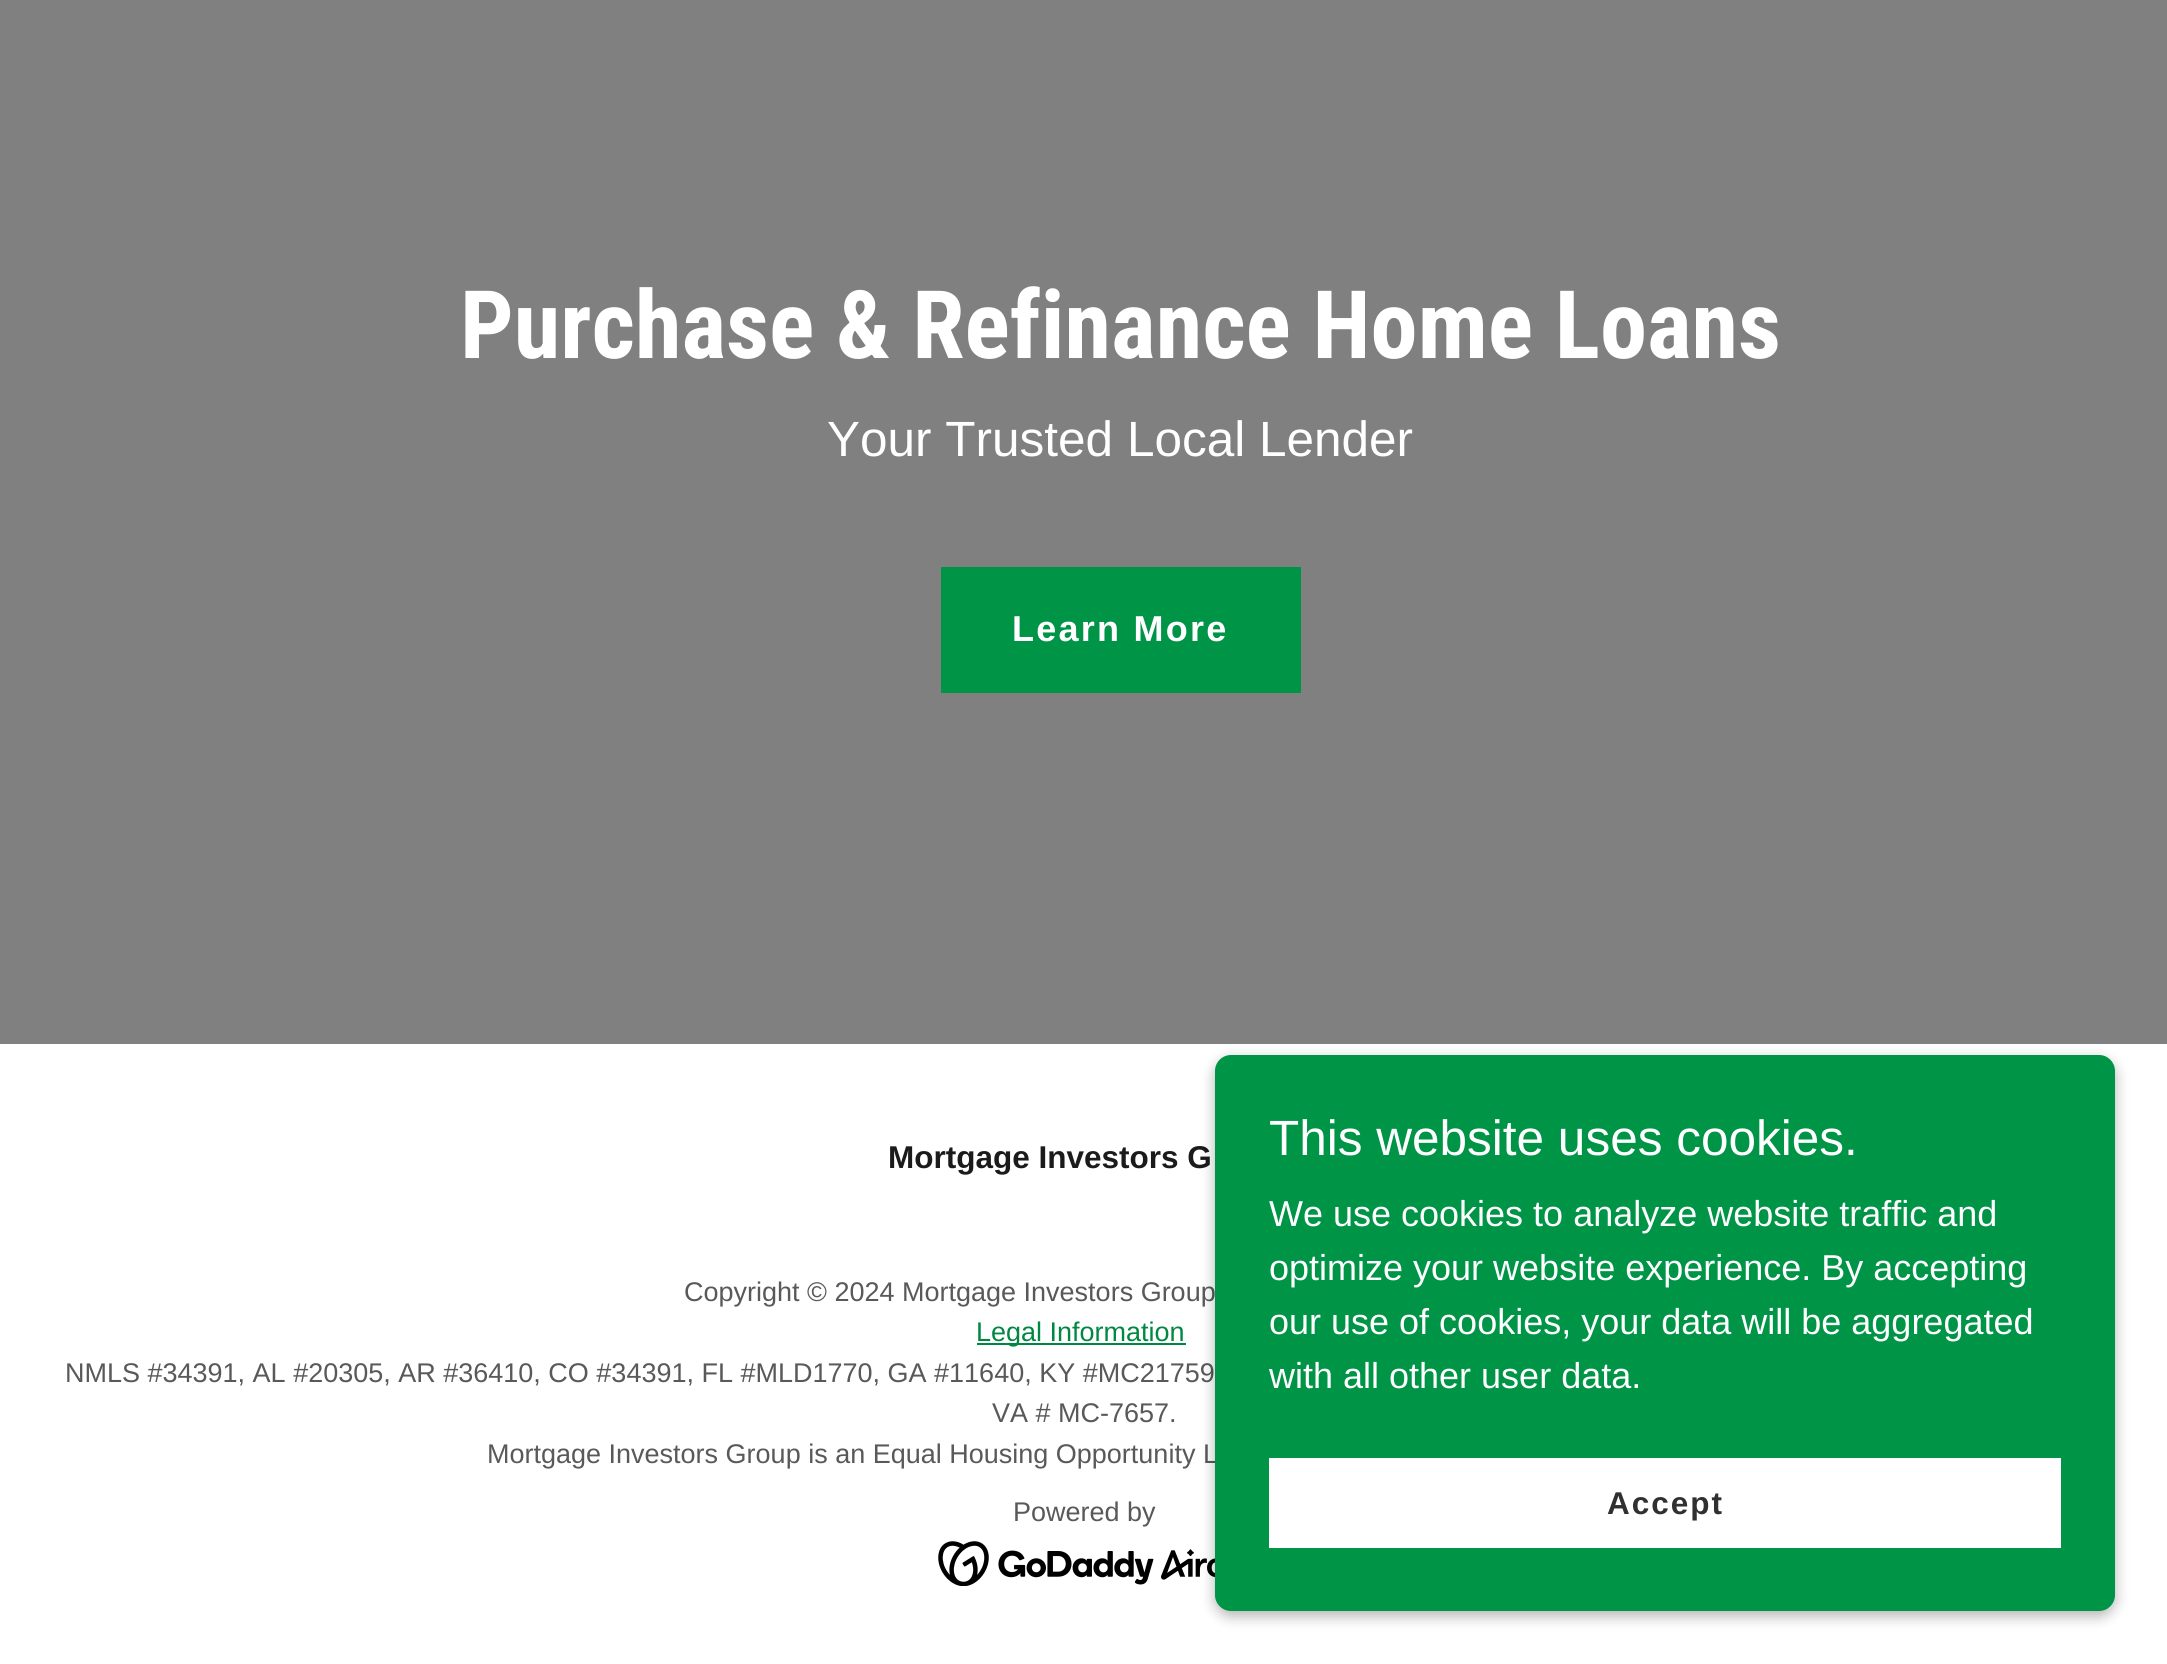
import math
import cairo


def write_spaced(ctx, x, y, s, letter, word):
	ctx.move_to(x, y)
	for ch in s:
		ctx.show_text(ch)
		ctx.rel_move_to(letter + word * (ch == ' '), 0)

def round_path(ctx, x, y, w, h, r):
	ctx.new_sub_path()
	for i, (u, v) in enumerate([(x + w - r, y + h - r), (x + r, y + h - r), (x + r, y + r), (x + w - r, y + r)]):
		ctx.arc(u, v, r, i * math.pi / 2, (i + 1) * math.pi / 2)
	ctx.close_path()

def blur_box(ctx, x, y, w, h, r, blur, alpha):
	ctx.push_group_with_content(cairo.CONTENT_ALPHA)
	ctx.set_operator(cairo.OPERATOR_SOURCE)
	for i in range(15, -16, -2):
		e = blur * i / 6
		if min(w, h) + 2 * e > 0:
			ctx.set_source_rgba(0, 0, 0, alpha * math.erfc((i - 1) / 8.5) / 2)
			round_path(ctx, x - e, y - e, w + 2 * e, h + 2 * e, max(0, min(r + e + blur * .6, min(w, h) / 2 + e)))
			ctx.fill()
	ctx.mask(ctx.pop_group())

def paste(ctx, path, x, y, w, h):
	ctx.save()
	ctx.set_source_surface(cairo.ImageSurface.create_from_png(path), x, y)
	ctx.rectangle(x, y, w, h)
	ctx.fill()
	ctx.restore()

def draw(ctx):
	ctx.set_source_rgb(1, 1, 1)
	ctx.paint()
	ctx.set_source_rgb(0.502, 0.502, 0.502)
	ctx.rectangle(0, 0, 2167, 1044)
	ctx.fill()
	ctx.select_font_face('Roboto Condensed', cairo.FONT_SLANT_NORMAL, cairo.FONT_WEIGHT_BOLD)
	ctx.set_font_size(94.5)
	ctx.set_source_rgb(1, 1, 1)
	ctx.move_to(460, 358)
	ctx.show_text('Purchase & Refinance Home Loans')
	ctx.select_font_face('Liberation Sans')
	ctx.set_font_size(49.5)
	ctx.move_to(827, 456)
	ctx.show_text('Your Trusted Local Lender')
	ctx.set_source_rgb(0, 0.58, 0.278)
	ctx.rectangle(941, 567, 360, 126)
	ctx.fill()
	ctx.select_font_face('Liberation Sans', cairo.FONT_SLANT_NORMAL, cairo.FONT_WEIGHT_BOLD)
	ctx.set_font_size(36)
	ctx.set_source_rgb(1, 1, 1)
	write_spaced(ctx, 1012, 641, 'Learn More', 2.25, 0)
	ctx.set_font_size(31.5)
	ctx.set_source_rgb(0.106, 0.106, 0.106)
	ctx.move_to(888, 1168)
	ctx.show_text('Mortgage Investors G')
	ctx.select_font_face('Liberation Sans')
	ctx.set_font_size(27)
	ctx.set_source_rgb(0.349, 0.349, 0.349)
	ctx.move_to(684, 1301)
	ctx.show_text('Copyright © 2024 Mortgage Investors Group')
	ctx.set_source_rgb(0, 0.529, 0.255)
	ctx.rectangle(977, 1343, 209, 2)
	ctx.fill()
	ctx.move_to(976, 1341)
	ctx.show_text('Legal Information')
	ctx.set_source_rgb(0.349, 0.349, 0.349)
	for x, y, s in [
		(65, 1382, 'NMLS #34391, AL #20305, AR #36410, CO #34391, FL #MLD1770, GA #11640, KY #MC21759'),
		(992, 1422, 'VA # MC-7657.'),
		(487, 1463, 'Mortgage Investors Group is an Equal Housing Opportunity L'),
		(1013, 1521, 'Powered by'),
	]:
		ctx.move_to(x, y)
		ctx.show_text(s)
	paste(ctx, 'media/1.png', 938, 1541, 277, 45)
	ctx.set_source_rgb(0, 0, 0)
	blur_box(ctx, 1215, 1060, 900, 556, 16, 7, 0.3)
	ctx.set_source_rgb(0, 0.58, 0.278)
	round_path(ctx, 1215, 1055, 900, 556, 16)
	ctx.fill()
	ctx.set_font_size(49.5)
	ctx.set_source_rgb(1, 1, 1)
	ctx.move_to(1269, 1155)
	ctx.show_text('This website uses cookies.')
	ctx.set_font_size(36)
	for x, y, s in [
		(1269, 1226, 'We use cookies to analyze website traffic and'),
		(1269, 1280, 'optimize your website experience. By accepting'),
		(1269, 1334, 'our use of cookies, your data will be aggregated'),
		(1269, 1388, 'with all other user data.'),
	]:
		ctx.move_to(x, y)
		ctx.show_text(s)
	ctx.rectangle(1269, 1458, 792, 90)
	ctx.fill()
	ctx.select_font_face('Liberation Sans', cairo.FONT_SLANT_NORMAL, cairo.FONT_WEIGHT_BOLD)
	ctx.set_font_size(31.5)
	ctx.set_source_rgb(0.188, 0.188, 0.188)
	write_spaced(ctx, 1607, 1514, 'Accept', 2, 0)


surface = cairo.ImageSurface(cairo.FORMAT_RGB24, 2167, 1664)
ctx = cairo.Context(surface)
options = cairo.FontOptions()
options.set_hint_metrics(cairo.HINT_METRICS_OFF)
options.set_hint_style(cairo.HINT_STYLE_NONE)
ctx.set_font_options(options)
ctx.set_miter_limit(4)
draw(ctx)
surface.write_to_png('image.png')
